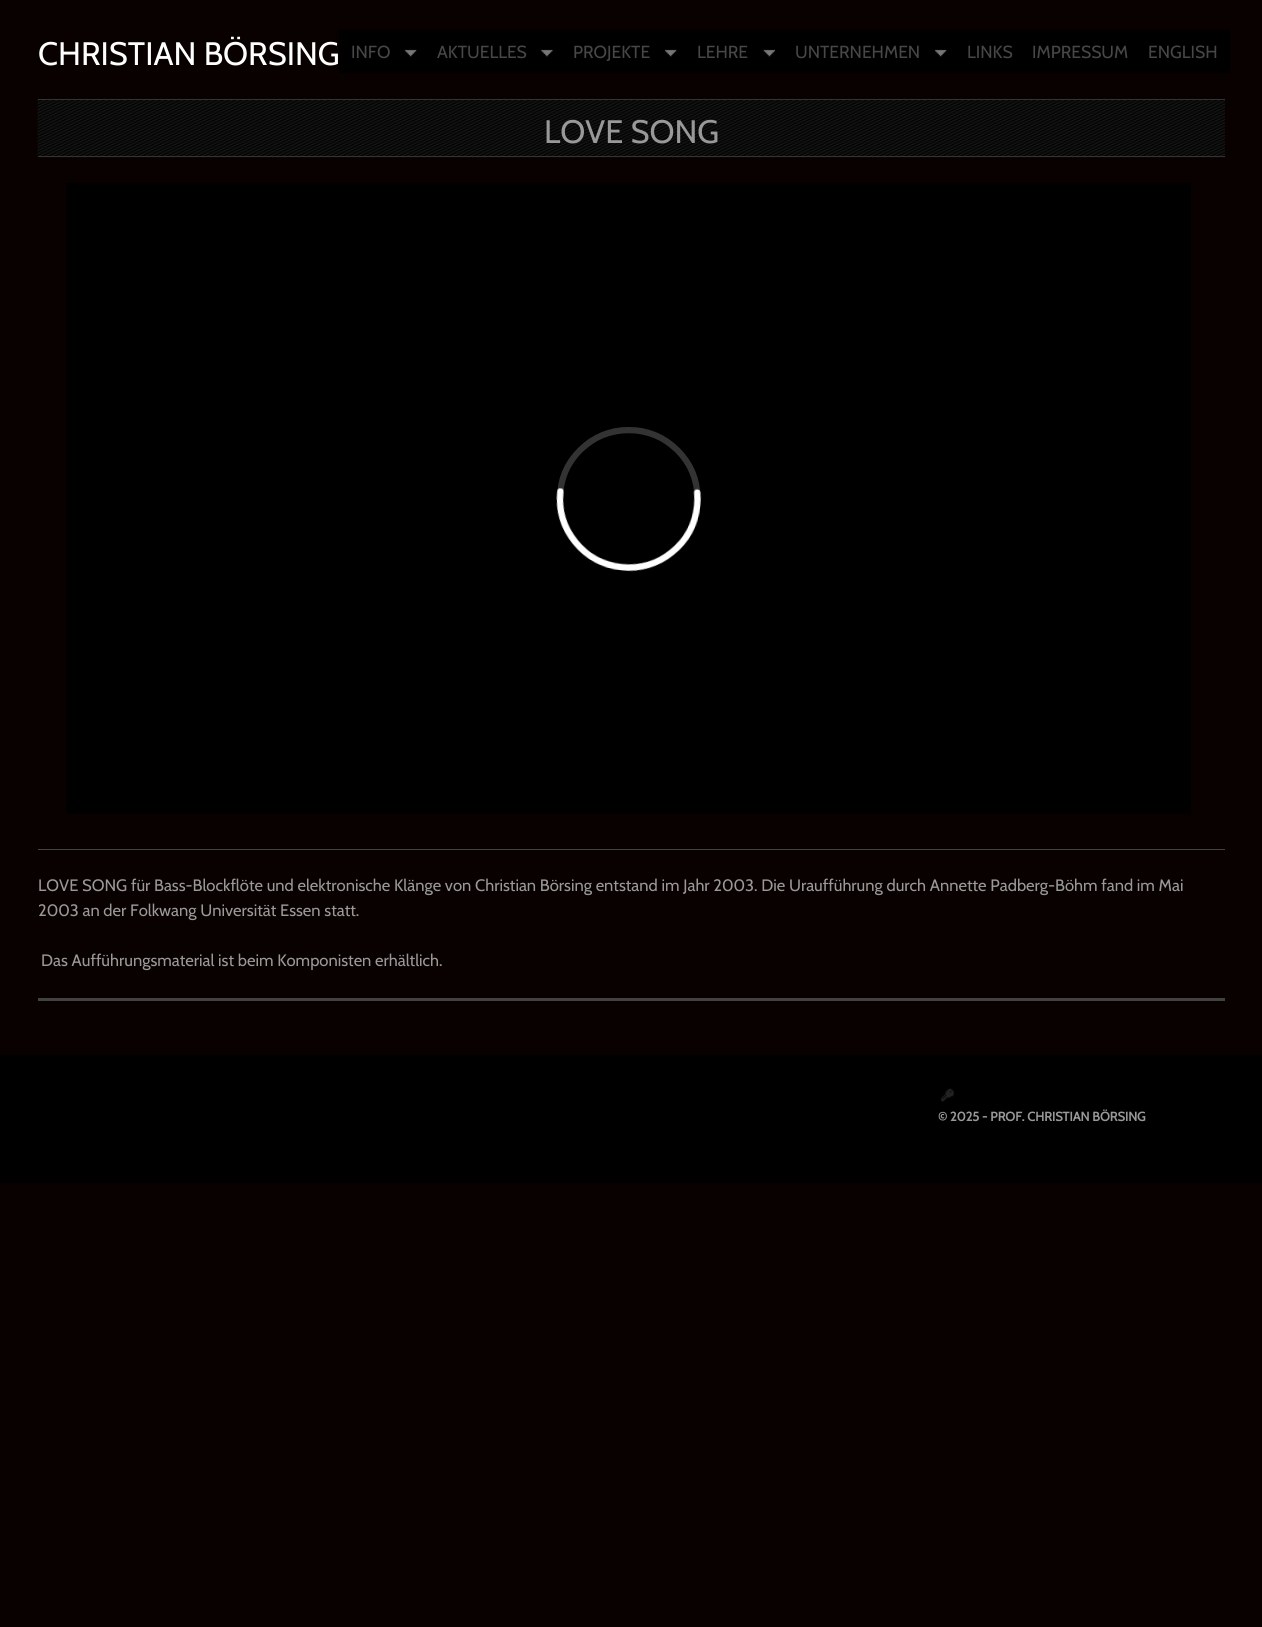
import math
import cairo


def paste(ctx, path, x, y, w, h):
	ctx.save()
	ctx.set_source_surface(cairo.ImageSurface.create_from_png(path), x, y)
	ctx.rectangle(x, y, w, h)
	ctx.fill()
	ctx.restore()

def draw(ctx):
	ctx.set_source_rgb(0.039, 0, 0)
	ctx.paint()
	ctx.select_font_face('Cabin')
	ctx.set_font_size(32.5)
	ctx.set_source_rgb(1, 1, 1)
	ctx.move_to(38, 65)
	ctx.show_text('CHRISTIAN BÖRSING')
	ctx.set_source_rgb(0, 0, 0)
	ctx.rectangle(339, 30, 891, 43)
	ctx.fill()
	ctx.set_font_size(17.5)
	ctx.set_source_rgb(0.278, 0.278, 0.278)
	ctx.move_to(351, 58)
	ctx.show_text('INFO')
	paste(ctx, 'media/1.png', 404, 49, 13, 8)
	ctx.move_to(437, 58)
	ctx.show_text('AKTUELLES')
	paste(ctx, 'media/2.png', 541, 49, 12, 8)
	ctx.move_to(573, 58)
	ctx.show_text('PROJEKTE')
	paste(ctx, 'media/3.png', 664, 49, 13, 8)
	ctx.move_to(697, 58)
	ctx.show_text('LEHRE')
	paste(ctx, 'media/4.png', 763, 49, 12, 8)
	ctx.move_to(795, 58)
	ctx.show_text('UNTERNEHMEN')
	paste(ctx, 'media/1.png', 934, 49, 13, 8)
	for x, y, s in [
		(967, 58, 'LINKS'),
		(1032, 58, 'IMPRESSUM'),
		(1148, 58, 'ENGLISH'),
	]:
		ctx.move_to(x, y)
		ctx.show_text(s)
	paste(ctx, 'media/5.png', 37, 98, 1188, 60)
	ctx.set_source_rgb(0.2, 0.2, 0.2)
	ctx.rectangle(38, 99, 1187, 1)
	ctx.fill()
	ctx.rectangle(38, 156, 1187, 1)
	ctx.fill()
	ctx.set_font_size(32.5)
	ctx.set_source_rgb(0.6, 0.6, 0.6)
	ctx.move_to(544, 143)
	ctx.show_text('LOVE SONG')
	paste(ctx, 'media/6.png', 66, 183, 1125, 631)
	ctx.set_source_rgb(0.259, 0.259, 0.259)
	ctx.rectangle(38, 849, 1187, 1)
	ctx.fill()
	ctx.set_font_size(16.55)
	ctx.set_source_rgb(0.6, 0.6, 0.6)
	for x, y, s in [
		(38, 891, 'LOVE SONG für Bass-Blockflöte und elektronische Klänge von Christian Börsing entstand im Jahr 2003. Die Uraufführung durch Annette Padberg-Böhm fand im Mai'),
		(38, 916, '2003 an der Folkwang Universität Essen statt.'),
		(41, 966, 'Das Aufführungsmaterial ist beim Komponisten erhältlich.'),
	]:
		ctx.move_to(x, y)
		ctx.show_text(s)
	ctx.set_source_rgb(0.259, 0.259, 0.259)
	ctx.rectangle(38, 998, 1187, 3)
	ctx.fill()
	ctx.set_source_rgb(0, 0, 0)
	ctx.rectangle(0, 1055, 1262, 128)
	ctx.fill()
	paste(ctx, 'media/7.png', 941, 1088, 13, 14)
	ctx.select_font_face('Cabin', cairo.FONT_SLANT_NORMAL, cairo.FONT_WEIGHT_BOLD)
	ctx.set_font_size(12.75)
	ctx.set_source_rgb(0.6, 0.6, 0.6)
	ctx.move_to(938, 1121)
	ctx.show_text('© 2025 - PROF. CHRISTIAN BÖRSING')


surface = cairo.ImageSurface(cairo.FORMAT_RGB24, 1262, 1627)
ctx = cairo.Context(surface)
options = cairo.FontOptions()
options.set_hint_metrics(cairo.HINT_METRICS_OFF)
options.set_hint_style(cairo.HINT_STYLE_NONE)
ctx.set_font_options(options)
ctx.set_miter_limit(4)
draw(ctx)
surface.write_to_png('image.png')
